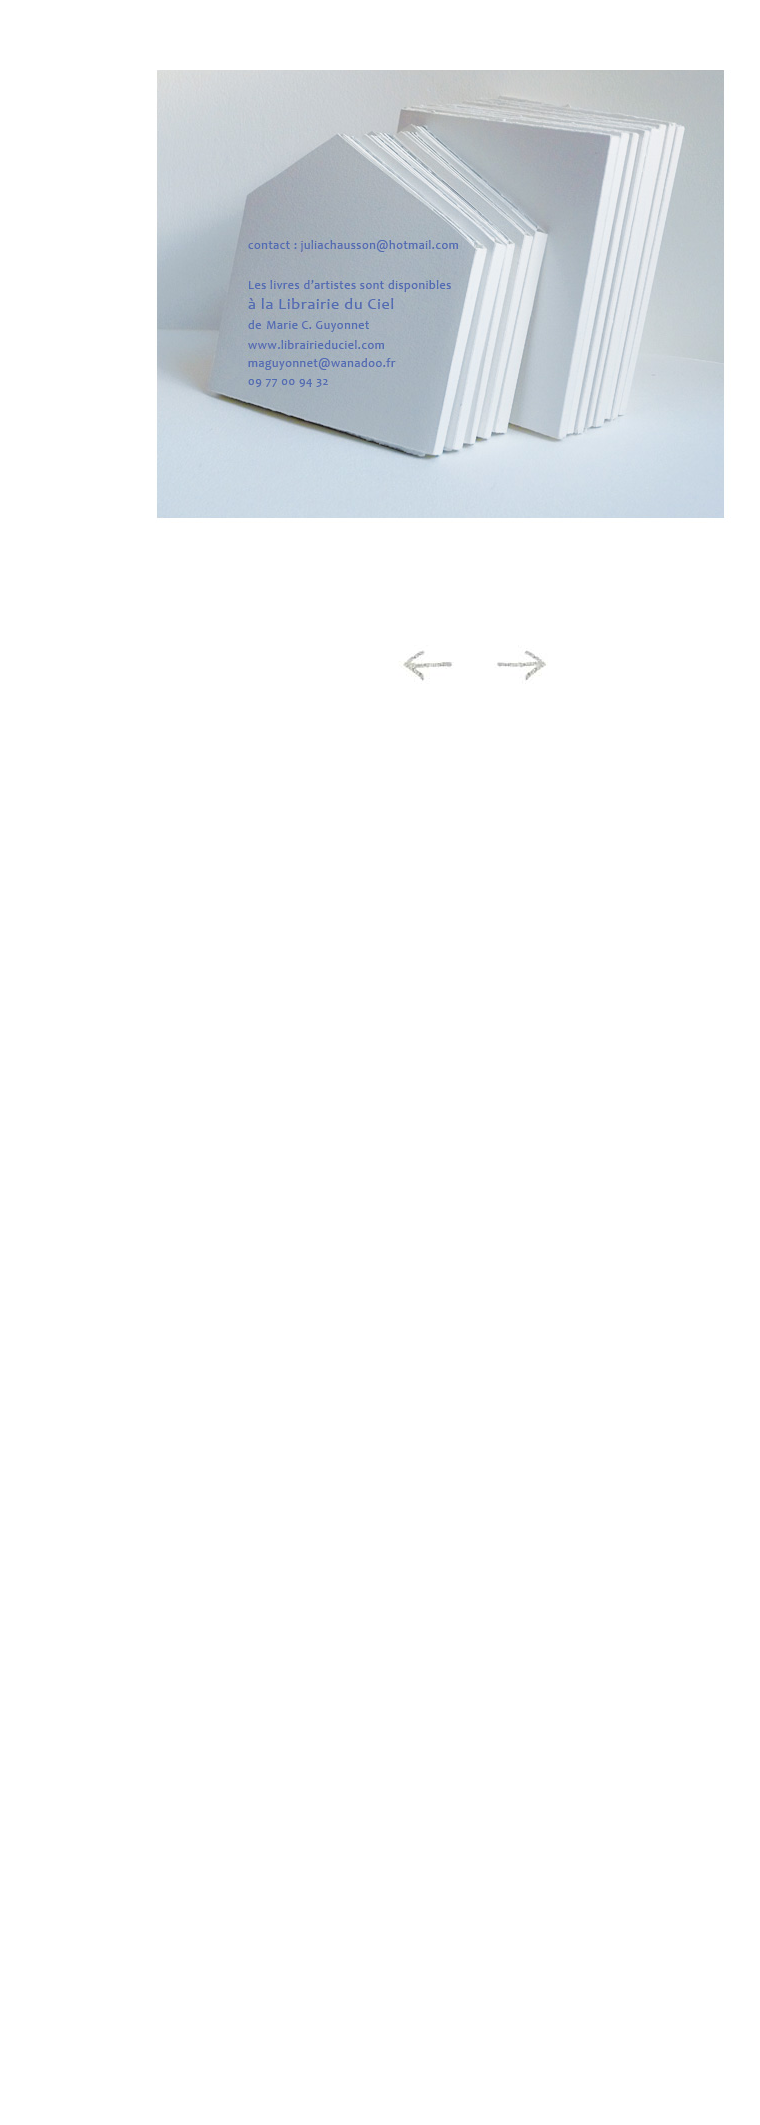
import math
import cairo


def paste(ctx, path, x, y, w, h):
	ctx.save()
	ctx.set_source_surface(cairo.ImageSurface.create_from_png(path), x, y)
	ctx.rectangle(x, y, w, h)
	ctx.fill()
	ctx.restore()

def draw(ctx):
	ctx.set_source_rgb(1, 1, 1)
	ctx.paint()
	paste(ctx, 'media/1.png', 155, 70, 576, 453)
	paste(ctx, 'media/2.png', 398, 645, 150, 39)


surface = cairo.ImageSurface(cairo.FORMAT_RGB24, 760, 2125)
ctx = cairo.Context(surface)
options = cairo.FontOptions()
options.set_hint_metrics(cairo.HINT_METRICS_OFF)
options.set_hint_style(cairo.HINT_STYLE_NONE)
ctx.set_font_options(options)
ctx.set_miter_limit(4)
draw(ctx)
surface.write_to_png('image.png')
